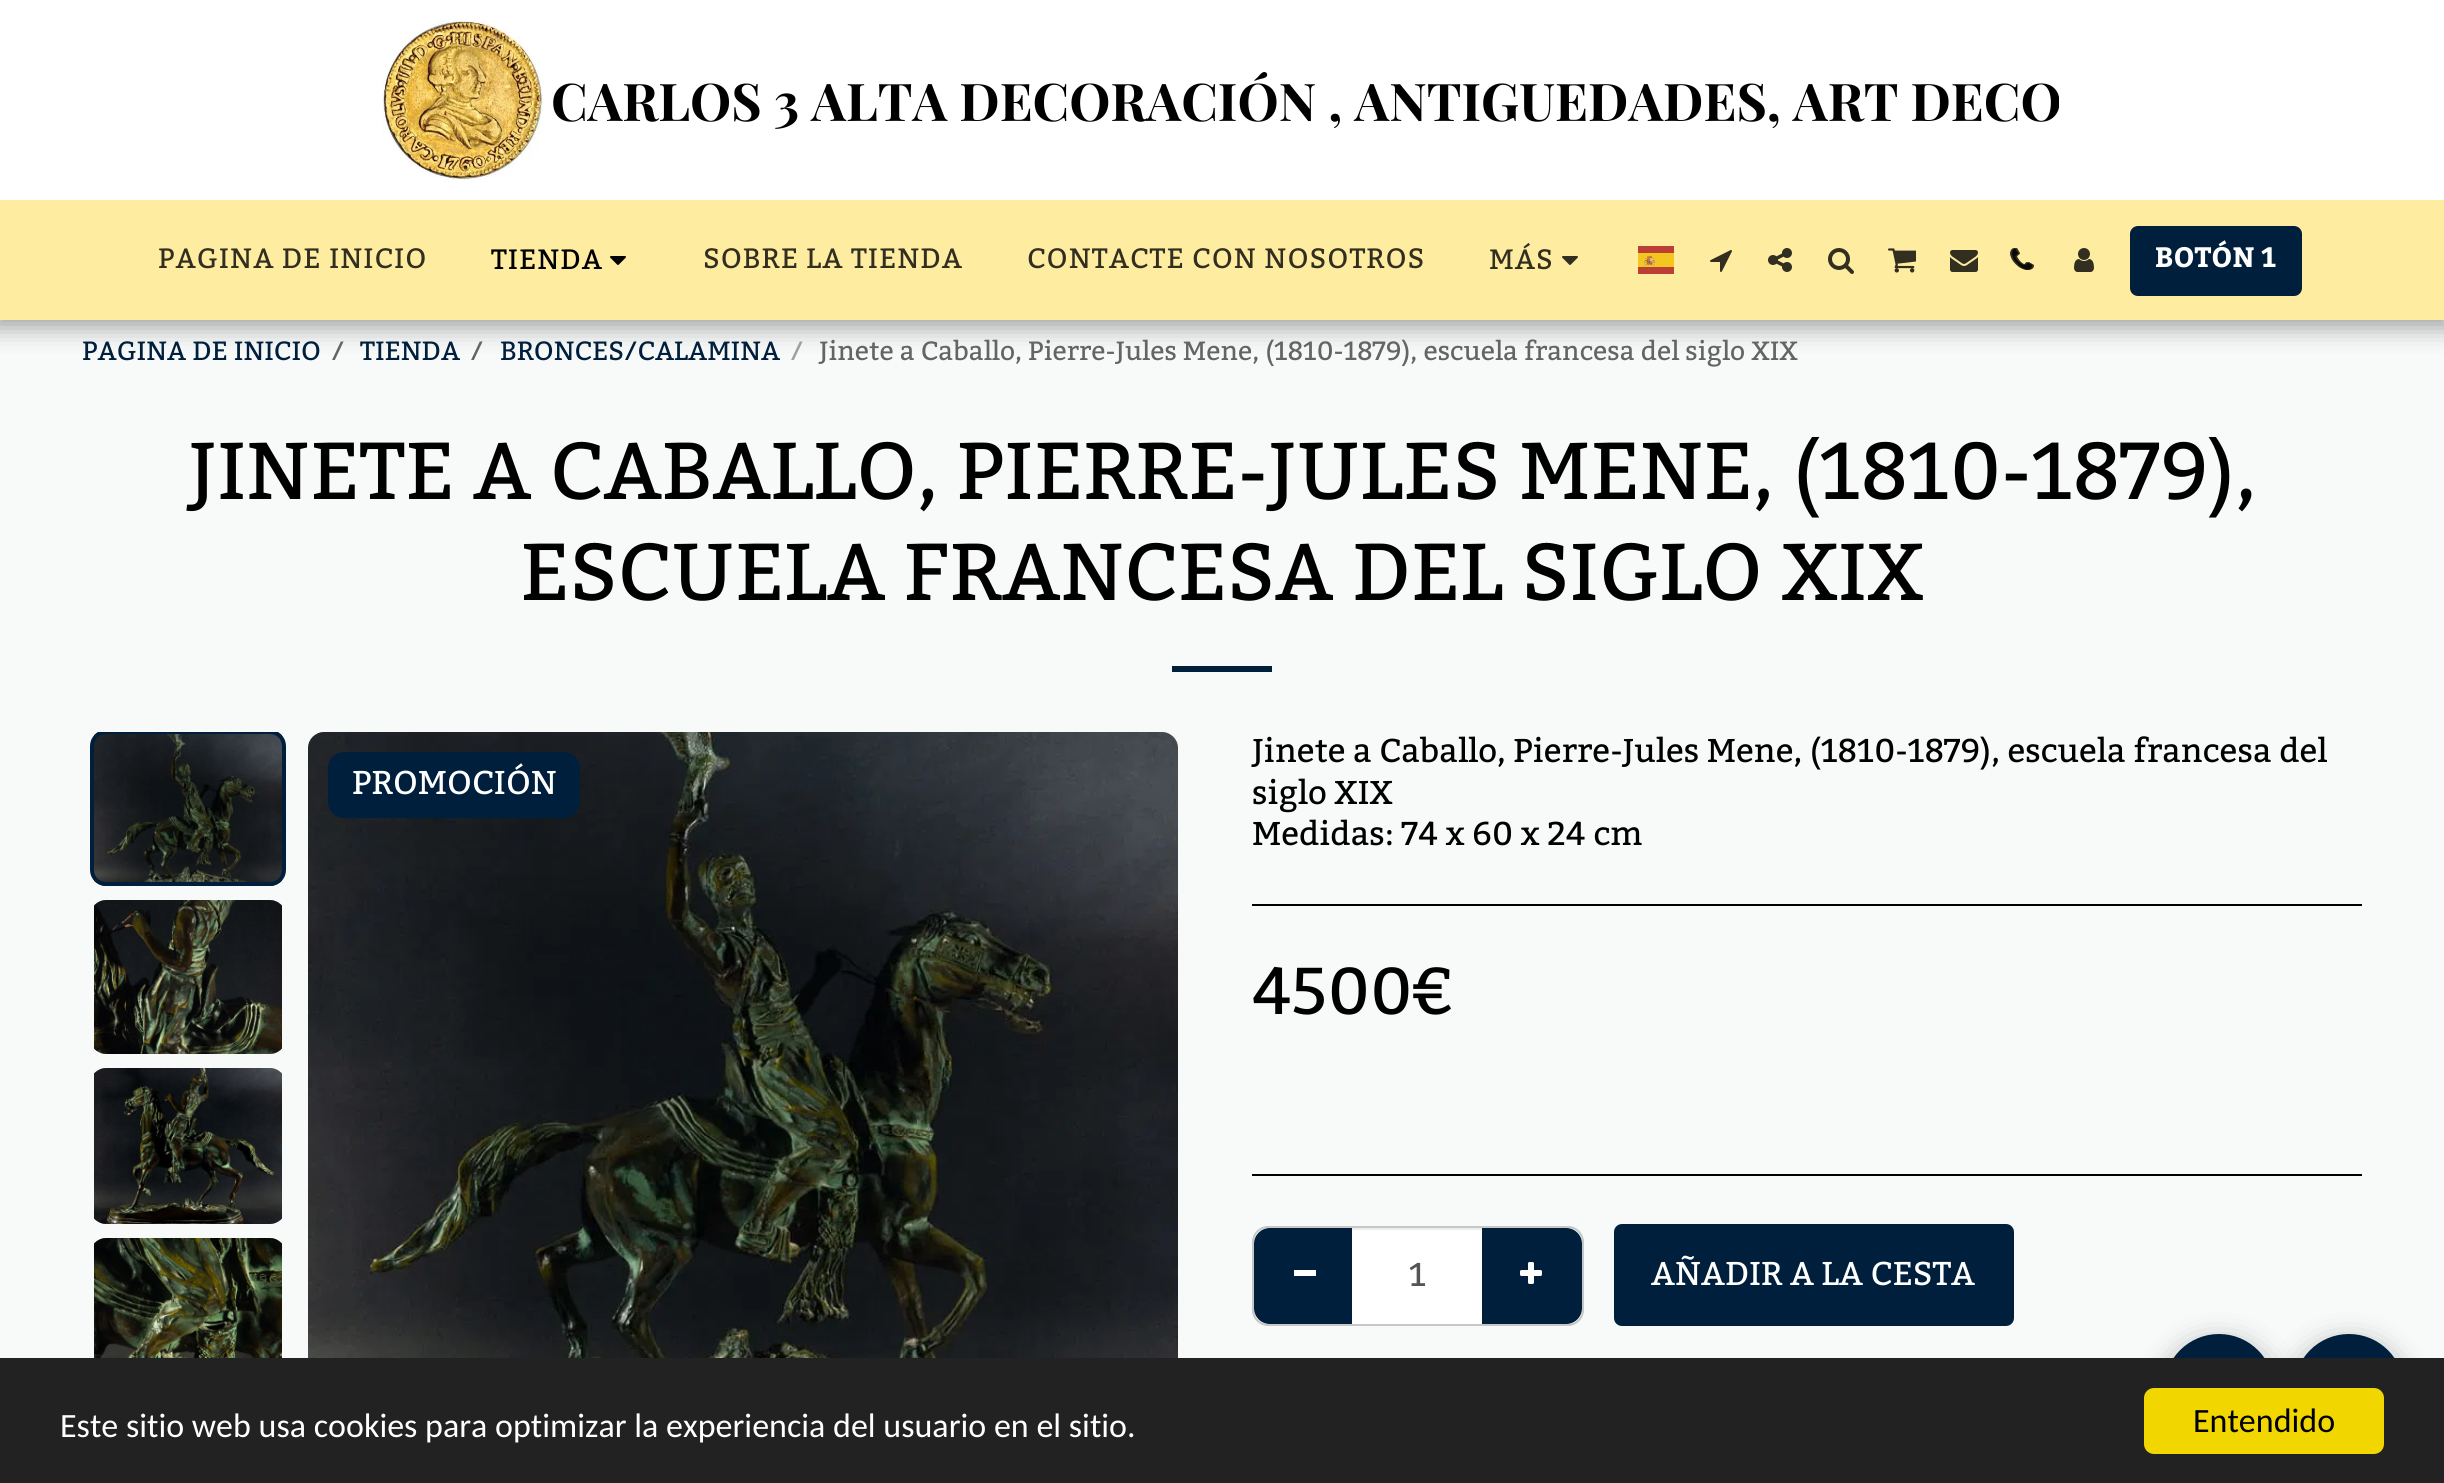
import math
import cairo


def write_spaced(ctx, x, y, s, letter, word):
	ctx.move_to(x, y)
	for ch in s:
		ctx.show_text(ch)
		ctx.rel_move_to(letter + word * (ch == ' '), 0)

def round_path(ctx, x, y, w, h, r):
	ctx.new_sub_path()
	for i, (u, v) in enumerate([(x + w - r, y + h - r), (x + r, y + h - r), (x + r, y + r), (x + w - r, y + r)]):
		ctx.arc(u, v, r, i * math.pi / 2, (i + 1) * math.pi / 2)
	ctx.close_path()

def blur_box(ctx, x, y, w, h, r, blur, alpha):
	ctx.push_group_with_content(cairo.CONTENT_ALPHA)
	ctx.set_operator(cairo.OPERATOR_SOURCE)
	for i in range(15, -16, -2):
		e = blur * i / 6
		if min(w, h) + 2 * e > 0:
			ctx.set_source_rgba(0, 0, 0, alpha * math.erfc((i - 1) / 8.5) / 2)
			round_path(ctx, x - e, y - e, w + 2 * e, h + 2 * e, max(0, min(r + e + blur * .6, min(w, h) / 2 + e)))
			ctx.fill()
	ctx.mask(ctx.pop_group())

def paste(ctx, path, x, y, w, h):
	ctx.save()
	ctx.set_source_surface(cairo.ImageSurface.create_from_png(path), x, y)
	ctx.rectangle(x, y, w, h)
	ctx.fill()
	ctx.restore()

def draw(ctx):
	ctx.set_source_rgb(0.969, 0.976, 0.973)
	ctx.paint()
	ctx.set_source_rgb(0, 0, 0)
	blur_box(ctx, -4, 0, 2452, 328, 0, 12, 0.35)
	ctx.set_source_rgb(0.996, 0.922, 0.627)
	ctx.rectangle(0, 200, 2444, 120)
	ctx.fill()
	ctx.set_source_rgb(1, 1, 1)
	ctx.rectangle(0, 0, 2444, 200)
	ctx.fill()
	paste(ctx, 'media/1.png', 382, 20, 161, 160)
	ctx.select_font_face('Playfair Display', cairo.FONT_SLANT_NORMAL, cairo.FONT_WEIGHT_BOLD)
	ctx.set_font_size(52)
	ctx.set_source_rgb(0, 0, 0)
	ctx.move_to(551, 121)
	ctx.show_text('CARLOS 3 ALTA DECORACIÓN , ANTIGUEDADES, ART DECO')
	ctx.select_font_face('Kadwa')
	ctx.set_font_size(28)
	ctx.set_source_rgb(0.2, 0.184, 0.125)
	write_spaced(ctx, 158, 268, 'PAGINA DE INICIO', 1, 0)
	ctx.set_source_rgb(0, 0, 0)
	write_spaced(ctx, 491, 269, 'TIENDA', 1, 0)
	paste(ctx, 'media/2.png', 610, 256, 16, 9)
	ctx.set_source_rgb(0.2, 0.184, 0.125)
	for x, y, s in [
		(703, 268, 'SOBRE LA TIENDA'),
		(1027, 268, 'CONTACTE CON NOSOTROS'),
		(1489, 269, 'MÁS'),
	]:
		write_spaced(ctx, x, y, s, 1, 0)
	paste(ctx, 'media/3.png', 1562, 256, 16, 9)
	paste(ctx, 'media/4.png', 1638, 246, 36, 28)
	paste(ctx, 'media/5.png', 1710, 250, 22, 22)
	paste(ctx, 'media/6.png', 1768, 248, 24, 24)
	paste(ctx, 'media/7.png', 1828, 248, 26, 26)
	paste(ctx, 'media/8.png', 1888, 248, 28, 25)
	paste(ctx, 'media/9.png', 1950, 250, 28, 22)
	paste(ctx, 'media/10.png', 2012, 248, 22, 22)
	paste(ctx, 'media/11.png', 2010, 248, 22, 22)
	paste(ctx, 'media/12.png', 2074, 248, 20, 24)
	ctx.set_source_rgb(0, 0.122, 0.239)
	round_path(ctx, 2131, 227, 170, 68, 7)
	ctx.fill_preserve()
	ctx.stroke()
	ctx.select_font_face('Kadwa', cairo.FONT_SLANT_NORMAL, cairo.FONT_WEIGHT_BOLD)
	ctx.set_source_rgb(1, 1, 1)
	ctx.move_to(2155, 267)
	ctx.show_text('BOTÓN 1')
	ctx.select_font_face('Kadwa')
	ctx.set_font_size(26.4)
	ctx.set_source_rgb(0, 0.122, 0.239)
	ctx.move_to(82, 360)
	ctx.show_text('PAGINA DE INICIO')
	ctx.set_source_rgb(0.388, 0.392, 0.388)
	ctx.move_to(331, 360)
	ctx.show_text('/')
	ctx.set_source_rgb(0, 0.122, 0.239)
	ctx.move_to(360, 360)
	ctx.show_text('TIENDA')
	ctx.set_source_rgb(0.388, 0.392, 0.388)
	ctx.move_to(470, 360)
	ctx.show_text('/')
	ctx.set_source_rgb(0, 0.122, 0.239)
	ctx.move_to(500, 360)
	ctx.show_text('BRONCES/CALAMINA')
	ctx.set_source_rgb(0.62, 0.624, 0.624)
	ctx.move_to(790, 360)
	ctx.show_text('/')
	ctx.set_source_rgb(0.388, 0.392, 0.388)
	ctx.move_to(819, 360)
	ctx.show_text('Jinete a Caballo, Pierre-Jules Mene, (1810-1879), escuela francesa del siglo XIX')
	ctx.set_font_size(80.55)
	ctx.set_source_rgb(0, 0, 0)
	ctx.move_to(188, 499)
	ctx.show_text('JINETE A CABALLO, PIERRE-JULES MENE, (1810-1879),')
	ctx.move_to(520, 600)
	ctx.show_text('ESCUELA FRANCESA DEL SIGLO XIX')
	ctx.set_source_rgb(0, 0.122, 0.239)
	ctx.rectangle(1172, 666, 100, 6)
	ctx.fill()
	paste(ctx, 'media/13.png', 94, 732, 188, 154)
	ctx.save()
	ctx.rectangle(88, 732, 200, 680)
	ctx.clip()
	round_path(ctx, 92, 732, 192, 152, 14)
	ctx.set_line_width(4)
	ctx.stroke()
	ctx.restore()
	paste(ctx, 'media/14.png', 94, 900, 188, 154)
	paste(ctx, 'media/15.png', 94, 1068, 188, 156)
	paste(ctx, 'media/16.png', 94, 1238, 188, 120)
	paste(ctx, 'media/17.png', 308, 732, 870, 626)
	round_path(ctx, 328, 752, 252, 66, 16)
	ctx.fill()
	ctx.set_font_size(33)
	ctx.set_source_rgb(1, 1, 1)
	ctx.move_to(352, 794)
	ctx.show_text('PROMOCIÓN')
	ctx.set_source_rgb(0, 0, 0)
	for x, y, s in [
		(1252, 762, 'Jinete a Caballo, Pierre-Jules Mene, (1810-1879), escuela francesa del'),
		(1252, 804, 'siglo XIX'),
		(1252, 845, 'Medidas: 74 x 60 x 24 cm'),
	]:
		ctx.move_to(x, y)
		ctx.show_text(s)
	ctx.rectangle(1252, 904, 1110, 2)
	ctx.fill()
	ctx.set_font_size(66)
	ctx.move_to(1252, 1014)
	ctx.show_text('4500€')
	ctx.rectangle(1252, 1174, 1110, 2)
	ctx.fill()
	round_path(ctx, 1253, 1227, 330, 98, 15)
	ctx.set_source_rgb(0.776, 0.78, 0.776)
	ctx.stroke()
	ctx.set_source_rgb(0, 0.122, 0.239)
	ctx.new_path()
	ctx.move_to(1270, 1228)
	ctx.line_to(1354, 1228)
	ctx.line_to(1354, 1324)
	ctx.line_to(1270, 1324)
	ctx.curve_to(1261, 1324, 1254, 1317, 1254, 1308)
	ctx.line_to(1254, 1244)
	ctx.curve_to(1254, 1235, 1261, 1228, 1270, 1228)
	ctx.close_path()
	ctx.fill()
	ctx.set_source_rgb(1, 1, 1)
	ctx.rectangle(1294, 1270, 22, 6)
	ctx.fill()
	ctx.set_source_rgb(0, 0.122, 0.239)
	ctx.new_path()
	ctx.move_to(1480, 1228)
	ctx.line_to(1566, 1228)
	ctx.curve_to(1575, 1228, 1582, 1235, 1582, 1244)
	ctx.line_to(1582, 1308)
	ctx.curve_to(1582, 1317, 1575, 1324, 1566, 1324)
	ctx.line_to(1480, 1324)
	ctx.close_path()
	ctx.fill()
	ctx.set_source_rgb(1, 1, 1)
	ctx.rectangle(1352, 1230, 130, 94)
	ctx.fill()
	ctx.set_source_rgb(0.925, 0.925, 0.925)
	ctx.rectangle(1352, 1228, 130, 2)
	ctx.fill()
	ctx.set_font_size(33)
	ctx.set_source_rgb(0.333, 0.333, 0.333)
	ctx.move_to(1409, 1286)
	ctx.show_text('1')
	paste(ctx, 'media/18.png', 1520, 1262, 22, 22)
	ctx.set_source_rgb(0, 0.122, 0.239)
	round_path(ctx, 1615, 1225, 398, 100, 7)
	ctx.fill_preserve()
	ctx.stroke()
	ctx.set_source_rgb(1, 1, 1)
	ctx.move_to(1651, 1285)
	ctx.show_text('AÑADIR A LA CESTA')
	ctx.set_source_rgb(0, 0, 0)
	blur_box(ctx, 2294, 1344, 110, 110, 55, 15, 0.35)
	ctx.set_source_rgb(0, 0.122, 0.239)
	ctx.arc(2349, 1389, 54, 0, 2 * math.pi)
	ctx.fill_preserve()
	ctx.stroke()
	ctx.set_source_rgb(0, 0, 0)
	blur_box(ctx, 2164, 1344, 110, 110, 55, 15, 0.35)
	ctx.set_source_rgb(0, 0.122, 0.239)
	ctx.arc(2219, 1389, 54, 0, 2 * math.pi)
	ctx.fill_preserve()
	ctx.stroke()
	ctx.set_source_rgb(0.133, 0.133, 0.133)
	ctx.rectangle(0, 1358, 2444, 125)
	ctx.fill()
	ctx.select_font_face('Carlito')
	ctx.set_font_size(34)
	ctx.set_source_rgb(1, 1, 1)
	ctx.move_to(60, 1437)
	ctx.show_text('Este sitio web usa cookies para optimizar la experiencia del usuario en el sitio.')
	ctx.set_source_rgb(0.945, 0.839, 0)
	round_path(ctx, 2144, 1388, 240, 66, 10)
	ctx.fill()
	ctx.set_source_rgb(0, 0, 0)
	ctx.move_to(2193, 1432)
	ctx.show_text('Entendido')


surface = cairo.ImageSurface(cairo.FORMAT_RGB24, 2444, 1483)
ctx = cairo.Context(surface)
options = cairo.FontOptions()
options.set_hint_metrics(cairo.HINT_METRICS_OFF)
options.set_hint_style(cairo.HINT_STYLE_NONE)
ctx.set_font_options(options)
ctx.set_miter_limit(4)
draw(ctx)
surface.write_to_png('image.png')
